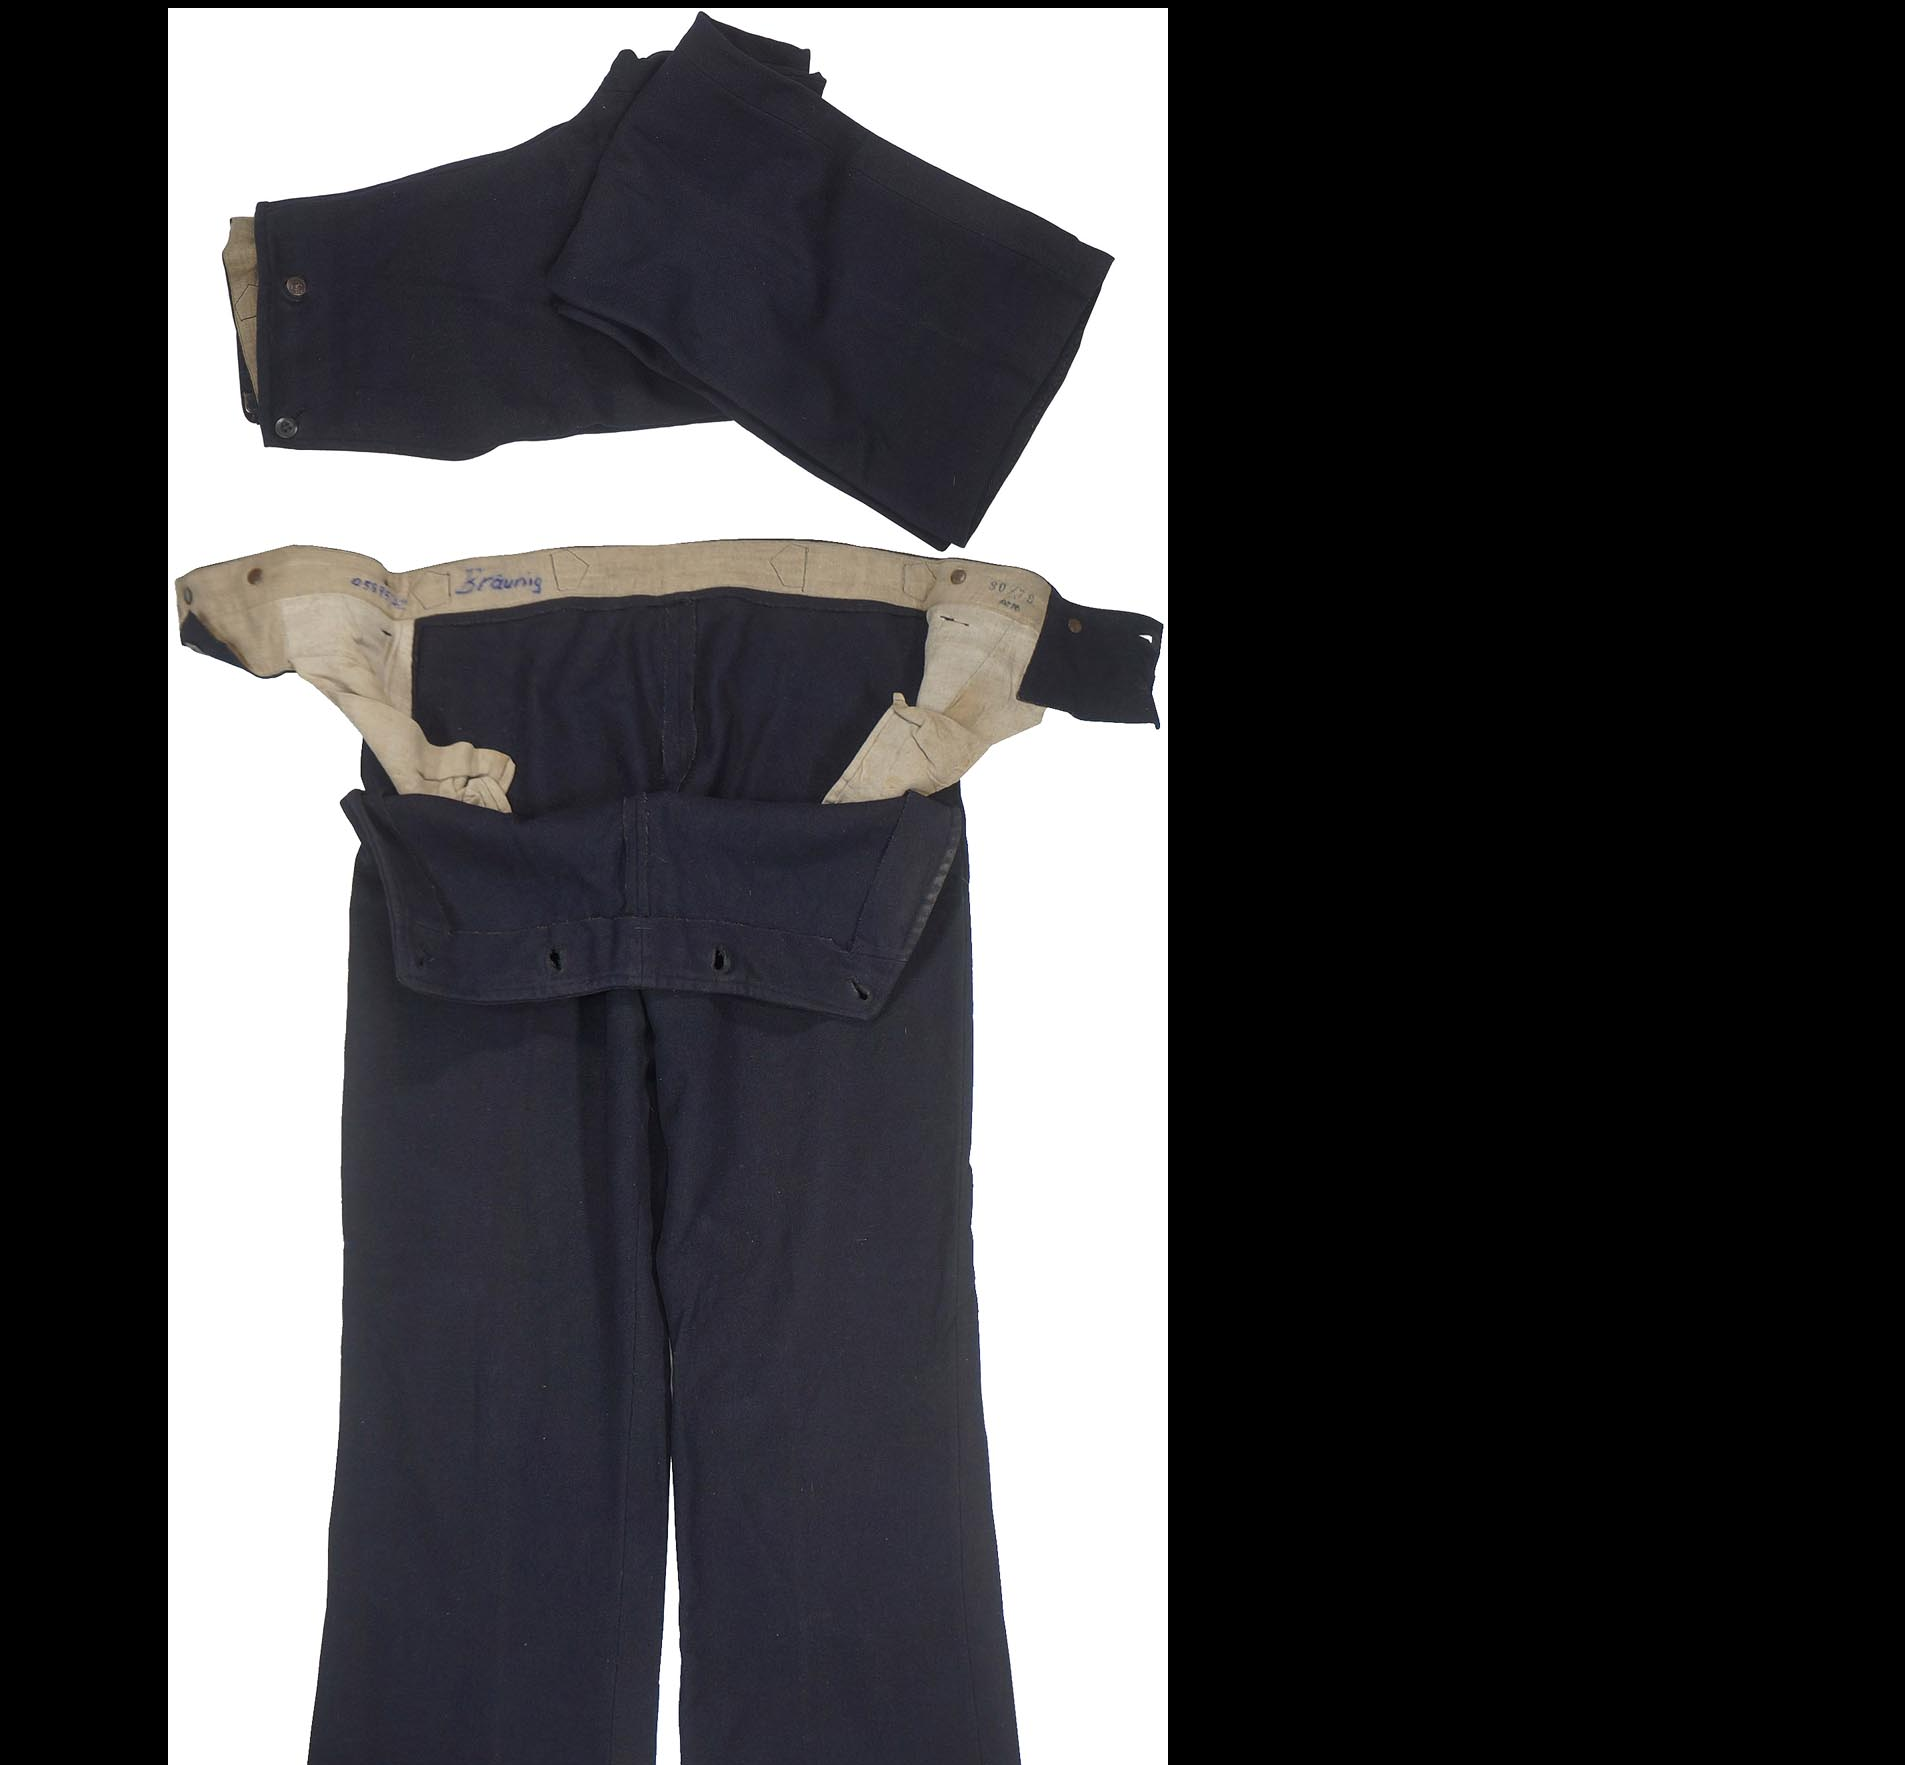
import math
import cairo


def paste(ctx, path, x, y, w, h):
	ctx.save()
	ctx.set_source_surface(cairo.ImageSurface.create_from_png(path), x, y)
	ctx.rectangle(x, y, w, h)
	ctx.fill()
	ctx.restore()

def draw(ctx):
	ctx.set_source_rgb(0, 0, 0)
	ctx.paint()
	paste(ctx, 'media/1.png', 168, 8, 1000, 1757)


surface = cairo.ImageSurface(cairo.FORMAT_RGB24, 1905, 1765)
ctx = cairo.Context(surface)
options = cairo.FontOptions()
options.set_hint_metrics(cairo.HINT_METRICS_OFF)
options.set_hint_style(cairo.HINT_STYLE_NONE)
ctx.set_font_options(options)
ctx.set_miter_limit(4)
draw(ctx)
surface.write_to_png('image.png')
